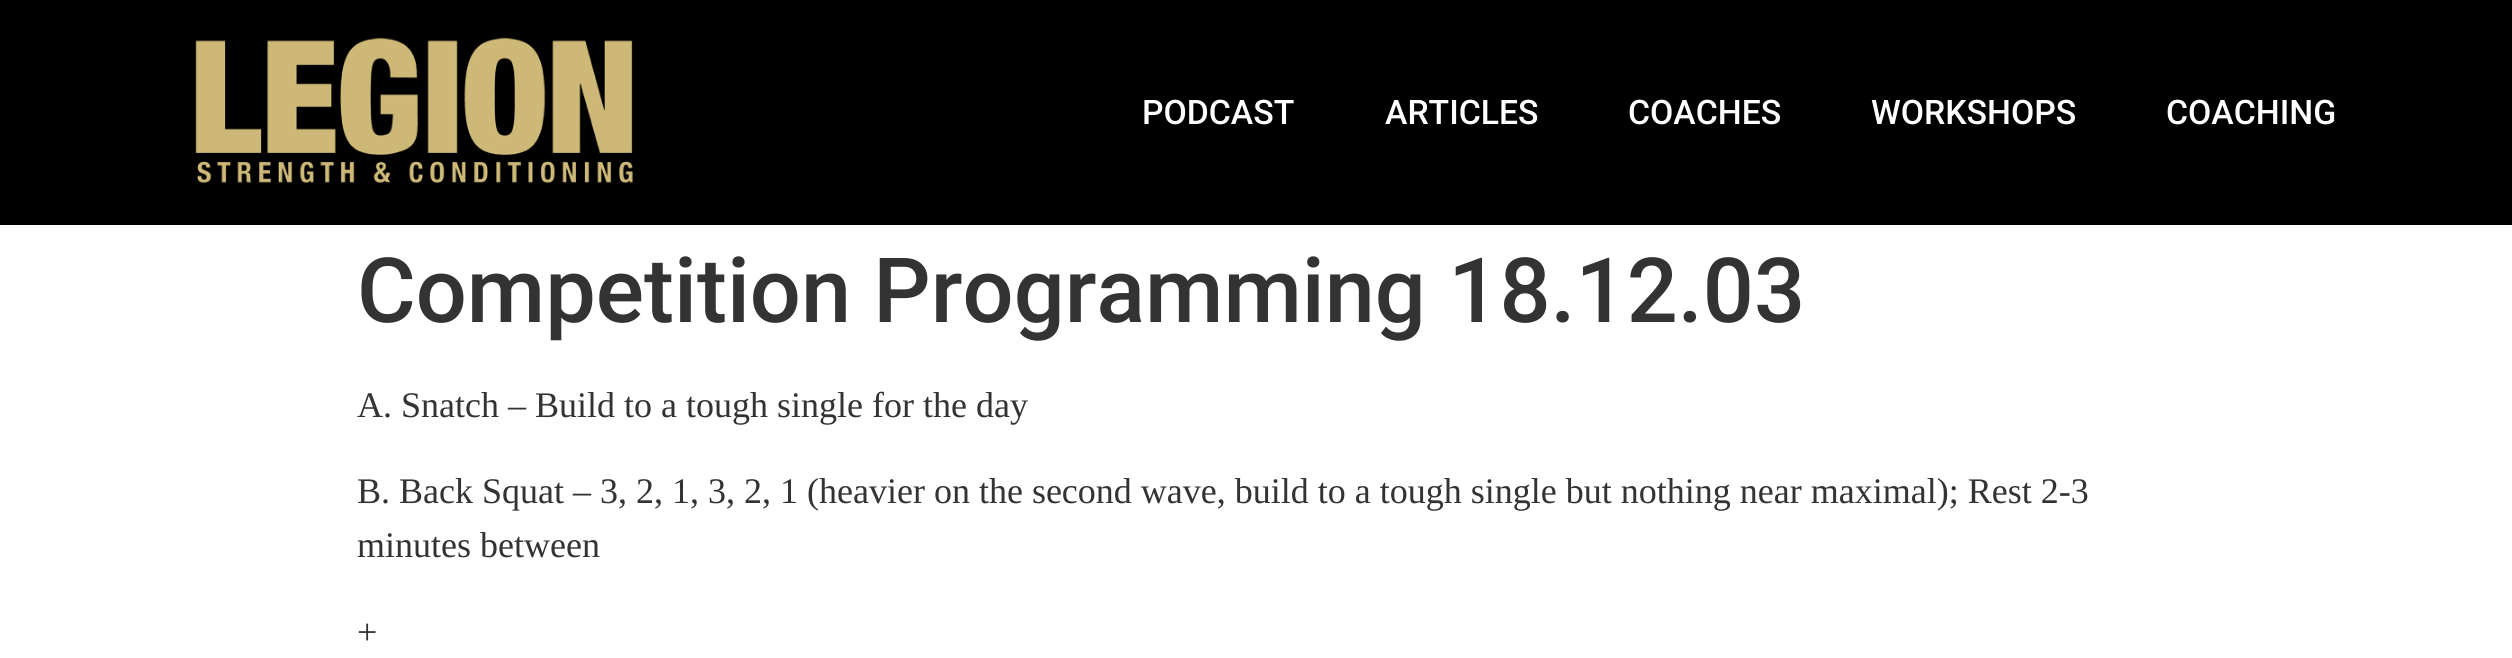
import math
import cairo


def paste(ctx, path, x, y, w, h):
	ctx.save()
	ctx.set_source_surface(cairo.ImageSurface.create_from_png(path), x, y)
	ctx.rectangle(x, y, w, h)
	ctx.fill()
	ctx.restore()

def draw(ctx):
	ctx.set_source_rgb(1, 1, 1)
	ctx.paint()
	ctx.set_source_rgb(0, 0, 0)
	ctx.rectangle(0, 0, 2512, 225)
	ctx.fill()
	paste(ctx, 'media/1.png', 195, 37, 438, 146)
	ctx.select_font_face('Roboto Medium')
	ctx.set_font_size(33.75)
	ctx.set_source_rgb(1, 1, 1)
	for x, y, s in [
		(1142, 124, 'PODCAST'),
		(1385, 124, 'ARTICLES'),
		(1628, 124, 'COACHES'),
		(1871, 124, 'WORKSHOPS'),
		(2166, 124, 'COACHING'),
	]:
		ctx.move_to(x, y)
		ctx.show_text(s)
	ctx.set_font_size(90)
	ctx.set_source_rgb(0.2, 0.2, 0.2)
	ctx.move_to(357, 322)
	ctx.show_text('Competition Programming 18.12.03')
	ctx.select_font_face('Liberation Serif')
	ctx.set_font_size(36)
	for x, y, s in [
		(357, 417, 'A. Snatch – Build to a tough single for the day'),
		(357, 503, 'B. Back Squat – 3, 2, 1, 3, 2, 1 (heavier on the second wave, build to a tough single but nothing near maximal); Rest 2-3'),
		(357, 557, 'minutes between'),
		(357, 644, '+'),
	]:
		ctx.move_to(x, y)
		ctx.show_text(s)


surface = cairo.ImageSurface(cairo.FORMAT_RGB24, 2512, 658)
ctx = cairo.Context(surface)
options = cairo.FontOptions()
options.set_hint_metrics(cairo.HINT_METRICS_OFF)
options.set_hint_style(cairo.HINT_STYLE_NONE)
ctx.set_font_options(options)
ctx.set_miter_limit(4)
draw(ctx)
surface.write_to_png('image.png')
